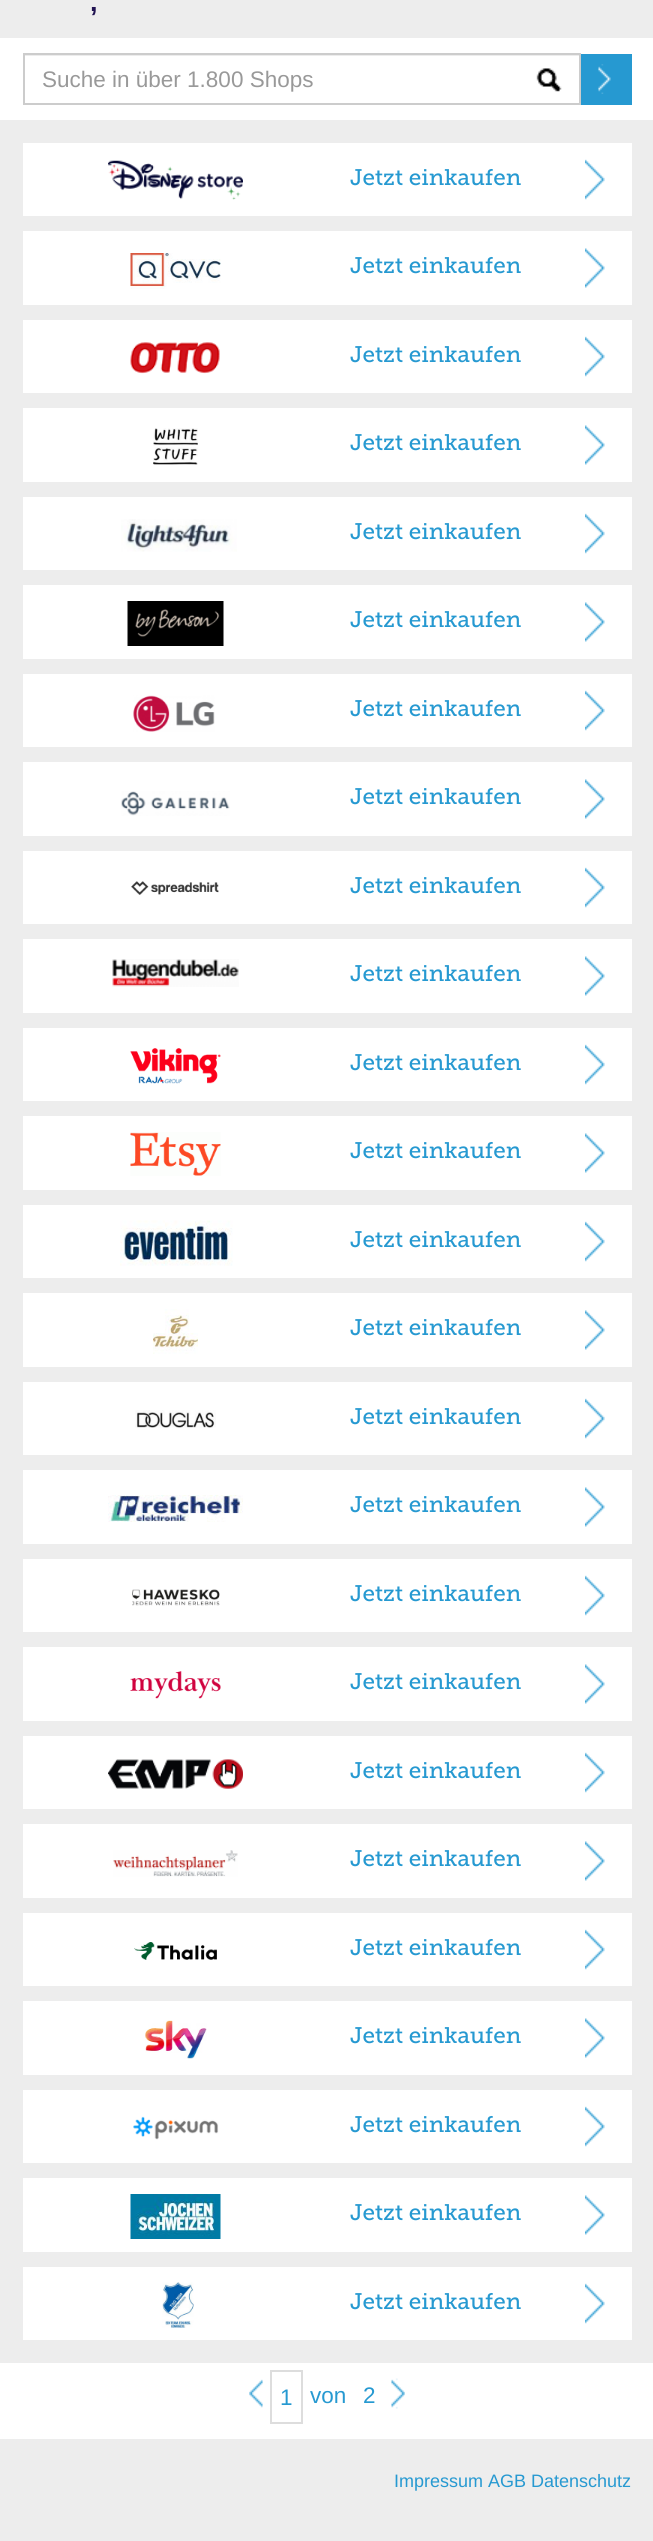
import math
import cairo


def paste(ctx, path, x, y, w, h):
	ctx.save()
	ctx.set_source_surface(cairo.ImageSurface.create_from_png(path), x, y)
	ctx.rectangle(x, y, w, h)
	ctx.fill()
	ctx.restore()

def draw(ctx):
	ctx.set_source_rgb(0.929, 0.929, 0.929)
	ctx.paint()
	ctx.select_font_face('Liberation Sans', cairo.FONT_SLANT_NORMAL, cairo.FONT_WEIGHT_BOLD)
	ctx.set_font_size(27)
	ctx.set_source_rgb(0.129, 0.078, 0.322)
	ctx.move_to(90, 11)
	ctx.show_text(',')
	ctx.set_source_rgb(1, 1, 1)
	ctx.rectangle(0, 38, 653, 82)
	ctx.fill()
	paste(ctx, 'media/1.png', 536, 68, 26, 24)
	ctx.set_source_rgb(0.925, 0.925, 0.925)
	ctx.rectangle(24, 55, 555, 1)
	ctx.fill()
	ctx.rectangle(24, 54, 556, 50)
	ctx.set_source_rgb(0.8, 0.8, 0.8)
	ctx.stroke()
	ctx.select_font_face('Liberation Sans')
	ctx.set_font_size(22.5)
	ctx.set_source_rgb(0.6, 0.6, 0.6)
	ctx.move_to(42, 87)
	ctx.show_text('Suche in über 1.800 Shops')
	ctx.set_source_rgb(0.149, 0.6, 0.82)
	ctx.rectangle(581, 54, 51, 51)
	ctx.fill()
	paste(ctx, 'media/2.png', 598, 64, 13, 30)
	ctx.set_source_rgb(1, 1, 1)
	ctx.rectangle(23, 143, 609, 73)
	ctx.fill()
	paste(ctx, 'media/3.png', 108, 160, 135, 40)
	ctx.select_font_face('Museo Slab')
	ctx.set_source_rgb(0.149, 0.6, 0.82)
	ctx.move_to(350, 185)
	ctx.show_text('Jetzt einkaufen')
	paste(ctx, 'media/4.png', 585, 159, 20, 41)
	ctx.set_source_rgb(1, 1, 1)
	ctx.rectangle(23, 231, 609, 74)
	ctx.fill()
	paste(ctx, 'media/5.png', 130, 253, 91, 36)
	ctx.set_source_rgb(0.149, 0.6, 0.82)
	ctx.move_to(350, 273)
	ctx.show_text('Jetzt einkaufen')
	paste(ctx, 'media/6.png', 585, 248, 20, 40)
	ctx.set_source_rgb(1, 1, 1)
	ctx.rectangle(23, 320, 609, 73)
	ctx.fill()
	paste(ctx, 'media/7.png', 130, 342, 90, 32)
	ctx.set_source_rgb(0.149, 0.6, 0.82)
	ctx.move_to(350, 362)
	ctx.show_text('Jetzt einkaufen')
	paste(ctx, 'media/4.png', 585, 336, 20, 41)
	ctx.set_source_rgb(1, 1, 1)
	ctx.rectangle(23, 408, 609, 74)
	ctx.fill()
	paste(ctx, 'media/8.png', 153, 428, 45, 37)
	ctx.set_source_rgb(0.149, 0.6, 0.82)
	ctx.move_to(350, 450)
	ctx.show_text('Jetzt einkaufen')
	paste(ctx, 'media/6.png', 585, 425, 20, 40)
	ctx.set_source_rgb(1, 1, 1)
	ctx.rectangle(23, 497, 609, 73)
	ctx.fill()
	paste(ctx, 'media/9.png', 121, 519, 116, 33)
	ctx.set_source_rgb(0.149, 0.6, 0.82)
	ctx.move_to(350, 539)
	ctx.show_text('Jetzt einkaufen')
	paste(ctx, 'media/4.png', 585, 513, 20, 41)
	ctx.set_source_rgb(1, 1, 1)
	ctx.rectangle(23, 585, 609, 74)
	ctx.fill()
	paste(ctx, 'media/10.png', 127, 601, 97, 45)
	ctx.set_source_rgb(0.149, 0.6, 0.82)
	ctx.move_to(350, 627)
	ctx.show_text('Jetzt einkaufen')
	paste(ctx, 'media/6.png', 585, 602, 20, 40)
	ctx.set_source_rgb(1, 1, 1)
	ctx.rectangle(23, 674, 609, 73)
	ctx.fill()
	paste(ctx, 'media/11.png', 133, 695, 82, 37)
	ctx.set_source_rgb(0.149, 0.6, 0.82)
	ctx.move_to(350, 716)
	ctx.show_text('Jetzt einkaufen')
	paste(ctx, 'media/4.png', 585, 690, 20, 41)
	ctx.set_source_rgb(1, 1, 1)
	ctx.rectangle(23, 762, 609, 74)
	ctx.fill()
	paste(ctx, 'media/12.png', 121, 791, 109, 25)
	ctx.set_source_rgb(0.149, 0.6, 0.82)
	ctx.move_to(350, 804)
	ctx.show_text('Jetzt einkaufen')
	paste(ctx, 'media/6.png', 585, 779, 20, 40)
	ctx.set_source_rgb(1, 1, 1)
	ctx.rectangle(23, 851, 609, 73)
	ctx.fill()
	paste(ctx, 'media/13.png', 131, 881, 88, 14)
	ctx.set_source_rgb(0.149, 0.6, 0.82)
	ctx.move_to(350, 893)
	ctx.show_text('Jetzt einkaufen')
	paste(ctx, 'media/4.png', 585, 867, 20, 41)
	ctx.set_source_rgb(1, 1, 1)
	ctx.rectangle(23, 939, 609, 74)
	ctx.fill()
	paste(ctx, 'media/14.png', 112, 959, 127, 28)
	ctx.set_source_rgb(0.149, 0.6, 0.82)
	ctx.move_to(350, 981)
	ctx.show_text('Jetzt einkaufen')
	paste(ctx, 'media/6.png', 585, 956, 20, 40)
	ctx.set_source_rgb(1, 1, 1)
	ctx.rectangle(23, 1028, 609, 73)
	ctx.fill()
	paste(ctx, 'media/15.png', 130, 1048, 91, 36)
	ctx.set_source_rgb(0.149, 0.6, 0.82)
	ctx.move_to(350, 1070)
	ctx.show_text('Jetzt einkaufen')
	paste(ctx, 'media/4.png', 585, 1044, 20, 41)
	ctx.set_source_rgb(1, 1, 1)
	ctx.rectangle(23, 1116, 609, 74)
	ctx.fill()
	paste(ctx, 'media/16.png', 130, 1132, 91, 44)
	ctx.set_source_rgb(0.149, 0.6, 0.82)
	ctx.move_to(350, 1158)
	ctx.show_text('Jetzt einkaufen')
	paste(ctx, 'media/6.png', 585, 1133, 20, 40)
	ctx.set_source_rgb(1, 1, 1)
	ctx.rectangle(23, 1205, 609, 73)
	ctx.fill()
	paste(ctx, 'media/17.png', 120, 1220, 113, 46)
	ctx.set_source_rgb(0.149, 0.6, 0.82)
	ctx.move_to(350, 1247)
	ctx.show_text('Jetzt einkaufen')
	paste(ctx, 'media/4.png', 585, 1221, 20, 41)
	ctx.set_source_rgb(1, 1, 1)
	ctx.rectangle(23, 1293, 609, 74)
	ctx.fill()
	paste(ctx, 'media/18.png', 153, 1309, 45, 45)
	ctx.set_source_rgb(0.149, 0.6, 0.82)
	ctx.move_to(350, 1335)
	ctx.show_text('Jetzt einkaufen')
	paste(ctx, 'media/6.png', 585, 1310, 20, 40)
	ctx.set_source_rgb(1, 1, 1)
	ctx.rectangle(23, 1382, 609, 73)
	ctx.fill()
	paste(ctx, 'media/19.png', 135, 1410, 81, 18)
	ctx.set_source_rgb(0.149, 0.6, 0.82)
	ctx.move_to(350, 1424)
	ctx.show_text('Jetzt einkaufen')
	paste(ctx, 'media/4.png', 585, 1398, 20, 41)
	ctx.set_source_rgb(1, 1, 1)
	ctx.rectangle(23, 1470, 609, 74)
	ctx.fill()
	paste(ctx, 'media/20.png', 108, 1495, 135, 27)
	ctx.set_source_rgb(0.149, 0.6, 0.82)
	ctx.move_to(350, 1512)
	ctx.show_text('Jetzt einkaufen')
	paste(ctx, 'media/6.png', 585, 1487, 20, 40)
	ctx.set_source_rgb(1, 1, 1)
	ctx.rectangle(23, 1559, 609, 73)
	ctx.fill()
	paste(ctx, 'media/21.png', 132, 1589, 88, 17)
	ctx.set_source_rgb(0.149, 0.6, 0.82)
	ctx.move_to(350, 1601)
	ctx.show_text('Jetzt einkaufen')
	paste(ctx, 'media/4.png', 585, 1575, 20, 41)
	ctx.set_source_rgb(1, 1, 1)
	ctx.rectangle(23, 1647, 609, 74)
	ctx.fill()
	paste(ctx, 'media/22.png', 130, 1671, 91, 28)
	ctx.set_source_rgb(0.149, 0.6, 0.82)
	ctx.move_to(350, 1689)
	ctx.show_text('Jetzt einkaufen')
	paste(ctx, 'media/6.png', 585, 1664, 20, 40)
	ctx.set_source_rgb(1, 1, 1)
	ctx.rectangle(23, 1736, 609, 73)
	ctx.fill()
	paste(ctx, 'media/23.png', 108, 1759, 135, 30)
	ctx.set_source_rgb(0.149, 0.6, 0.82)
	ctx.move_to(350, 1778)
	ctx.show_text('Jetzt einkaufen')
	paste(ctx, 'media/4.png', 585, 1752, 20, 41)
	ctx.set_source_rgb(1, 1, 1)
	ctx.rectangle(23, 1824, 609, 74)
	ctx.fill()
	paste(ctx, 'media/24.png', 113, 1850, 125, 27)
	ctx.set_source_rgb(0.149, 0.6, 0.82)
	ctx.move_to(350, 1866)
	ctx.show_text('Jetzt einkaufen')
	paste(ctx, 'media/6.png', 585, 1841, 20, 40)
	ctx.set_source_rgb(1, 1, 1)
	ctx.rectangle(23, 1913, 609, 73)
	ctx.fill()
	paste(ctx, 'media/25.png', 134, 1942, 83, 18)
	ctx.set_source_rgb(0.149, 0.6, 0.82)
	ctx.move_to(350, 1955)
	ctx.show_text('Jetzt einkaufen')
	paste(ctx, 'media/4.png', 585, 1929, 20, 41)
	ctx.set_source_rgb(1, 1, 1)
	ctx.rectangle(23, 2001, 609, 74)
	ctx.fill()
	paste(ctx, 'media/26.png', 145, 2020, 62, 39)
	ctx.set_source_rgb(0.149, 0.6, 0.82)
	ctx.move_to(350, 2043)
	ctx.show_text('Jetzt einkaufen')
	paste(ctx, 'media/6.png', 585, 2018, 20, 40)
	ctx.set_source_rgb(1, 1, 1)
	ctx.rectangle(23, 2090, 609, 73)
	ctx.fill()
	paste(ctx, 'media/27.png', 133, 2116, 86, 24)
	ctx.set_source_rgb(0.149, 0.6, 0.82)
	ctx.move_to(350, 2132)
	ctx.show_text('Jetzt einkaufen')
	paste(ctx, 'media/4.png', 585, 2106, 20, 41)
	ctx.set_source_rgb(1, 1, 1)
	ctx.rectangle(23, 2178, 609, 74)
	ctx.fill()
	paste(ctx, 'media/28.png', 130, 2194, 91, 45)
	ctx.set_source_rgb(0.149, 0.6, 0.82)
	ctx.move_to(350, 2220)
	ctx.show_text('Jetzt einkaufen')
	paste(ctx, 'media/6.png', 585, 2195, 20, 40)
	ctx.set_source_rgb(1, 1, 1)
	ctx.rectangle(23, 2267, 609, 73)
	ctx.fill()
	paste(ctx, 'media/29.png', 162, 2282, 32, 46)
	ctx.set_source_rgb(0.149, 0.6, 0.82)
	ctx.move_to(350, 2309)
	ctx.show_text('Jetzt einkaufen')
	paste(ctx, 'media/4.png', 585, 2283, 20, 41)
	ctx.set_source_rgb(1, 1, 1)
	ctx.rectangle(0, 2363, 653, 76)
	ctx.fill()
	paste(ctx, 'media/30.png', 249, 2379, 14, 29)
	ctx.rectangle(271, 2371, 31, 52)
	ctx.set_source_rgb(0.867, 0.867, 0.867)
	ctx.stroke()
	ctx.select_font_face('Liberation Sans')
	ctx.set_source_rgb(0.149, 0.6, 0.82)
	for x, y, s in [
		(280, 2405, '1'),
		(310, 2403, 'von'),
		(363, 2403, '2'),
	]:
		ctx.move_to(x, y)
		ctx.show_text(s)
	paste(ctx, 'media/31.png', 391, 2378, 14, 31)
	ctx.set_font_size(18)
	ctx.move_to(394, 2487)
	ctx.show_text('Impressum AGB Datenschutz')


surface = cairo.ImageSurface(cairo.FORMAT_RGB24, 653, 2541)
ctx = cairo.Context(surface)
options = cairo.FontOptions()
options.set_hint_metrics(cairo.HINT_METRICS_OFF)
options.set_hint_style(cairo.HINT_STYLE_NONE)
ctx.set_font_options(options)
ctx.set_miter_limit(4)
draw(ctx)
surface.write_to_png('image.png')
